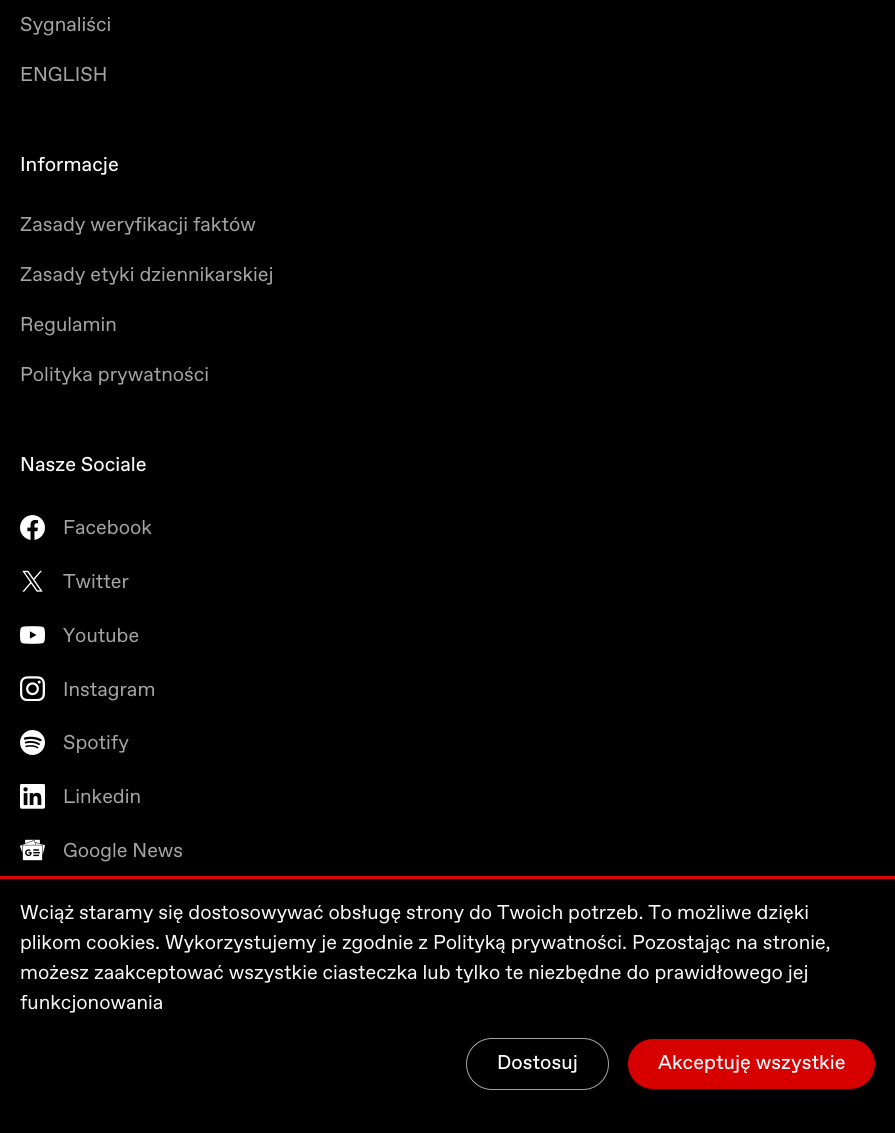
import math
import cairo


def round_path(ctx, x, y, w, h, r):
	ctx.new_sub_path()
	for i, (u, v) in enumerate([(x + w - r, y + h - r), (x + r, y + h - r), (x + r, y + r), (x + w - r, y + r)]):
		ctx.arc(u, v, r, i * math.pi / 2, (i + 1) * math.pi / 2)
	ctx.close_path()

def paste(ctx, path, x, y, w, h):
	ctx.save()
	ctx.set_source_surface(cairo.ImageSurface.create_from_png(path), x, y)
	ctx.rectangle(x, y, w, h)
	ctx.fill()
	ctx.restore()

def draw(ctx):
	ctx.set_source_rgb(0, 0, 0)
	ctx.paint()
	ctx.select_font_face('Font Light')
	ctx.set_font_size(20)
	ctx.set_source_rgb(0.643, 0.643, 0.643)
	ctx.move_to(20, 31)
	ctx.show_text('Sygnaliści')
	ctx.move_to(20, 81)
	ctx.show_text('ENGLISH')
	ctx.select_font_face('Font')
	ctx.set_source_rgb(0.969, 0.969, 0.969)
	ctx.move_to(20, 171)
	ctx.show_text('Informacje')
	ctx.select_font_face('Font Light')
	ctx.set_source_rgb(0.643, 0.643, 0.643)
	for x, y, s in [
		(20, 231, 'Zasady weryfikacji faktów'),
		(20, 281, 'Zasady etyki dziennikarskiej'),
		(20, 331, 'Regulamin'),
		(20, 381, 'Polityka prywatności'),
	]:
		ctx.move_to(x, y)
		ctx.show_text(s)
	ctx.select_font_face('Font')
	ctx.set_source_rgb(0.969, 0.969, 0.969)
	ctx.move_to(20, 471)
	ctx.show_text('Nasze Sociale')
	paste(ctx, 'media/1.png', 20, 515, 25, 25)
	ctx.select_font_face('Font Light')
	ctx.set_source_rgb(0.643, 0.643, 0.643)
	ctx.move_to(63, 534)
	ctx.show_text('Facebook')
	paste(ctx, 'media/2.png', 22, 570, 21, 22)
	ctx.move_to(63, 588)
	ctx.show_text('Twitter')
	paste(ctx, 'media/3.png', 20, 626, 25, 18)
	ctx.move_to(63, 642)
	ctx.show_text('Youtube')
	paste(ctx, 'media/4.png', 20, 676, 25, 25)
	ctx.move_to(63, 696)
	ctx.show_text('Instagram')
	paste(ctx, 'media/5.png', 20, 730, 25, 25)
	ctx.move_to(63, 749)
	ctx.show_text('Spotify')
	paste(ctx, 'media/6.png', 20, 784, 25, 25)
	ctx.move_to(63, 803)
	ctx.show_text('Linkedin')
	paste(ctx, 'media/7.png', 20, 839, 25, 22)
	ctx.move_to(63, 857)
	ctx.show_text('Google News')
	ctx.set_source_rgb(0.839, 0, 0)
	ctx.rectangle(0, 876, 895, 3)
	ctx.fill()
	ctx.set_source_rgb(0.969, 0.969, 0.969)
	for x, y, s in [
		(20, 919, 'Wciąż staramy się dostosowywać obsługę strony do Twoich potrzeb. To możliwe dzięki'),
		(20, 949, 'plikom cookies. Wykorzystujemy je zgodnie z Polityką prywatności. Pozostając na stronie,'),
		(20, 979, 'możesz zaakceptować wszystkie ciasteczka lub tylko te niezbędne do prawidłowego jej'),
		(20, 1009, 'funkcjonowania'),
	]:
		ctx.move_to(x, y)
		ctx.show_text(s)
	round_path(ctx, 466.5, 1038.5, 142, 51, 25.5)
	ctx.set_source_rgb(0.643, 0.643, 0.643)
	ctx.set_line_width(1)
	ctx.stroke()
	ctx.select_font_face('Font')
	ctx.set_source_rgb(1, 1, 1)
	ctx.move_to(497, 1069)
	ctx.show_text('Dostosuj')
	ctx.set_source_rgb(0.839, 0, 0)
	round_path(ctx, 628, 1039, 247, 50, 25)
	ctx.fill()
	ctx.set_source_rgb(0.969, 0.969, 0.969)
	ctx.move_to(658, 1069)
	ctx.show_text('Akceptuję wszystkie')


surface = cairo.ImageSurface(cairo.FORMAT_RGB24, 895, 1133)
ctx = cairo.Context(surface)
options = cairo.FontOptions()
options.set_hint_metrics(cairo.HINT_METRICS_OFF)
options.set_hint_style(cairo.HINT_STYLE_NONE)
ctx.set_font_options(options)
ctx.set_miter_limit(4)
draw(ctx)
surface.write_to_png('image.png')
